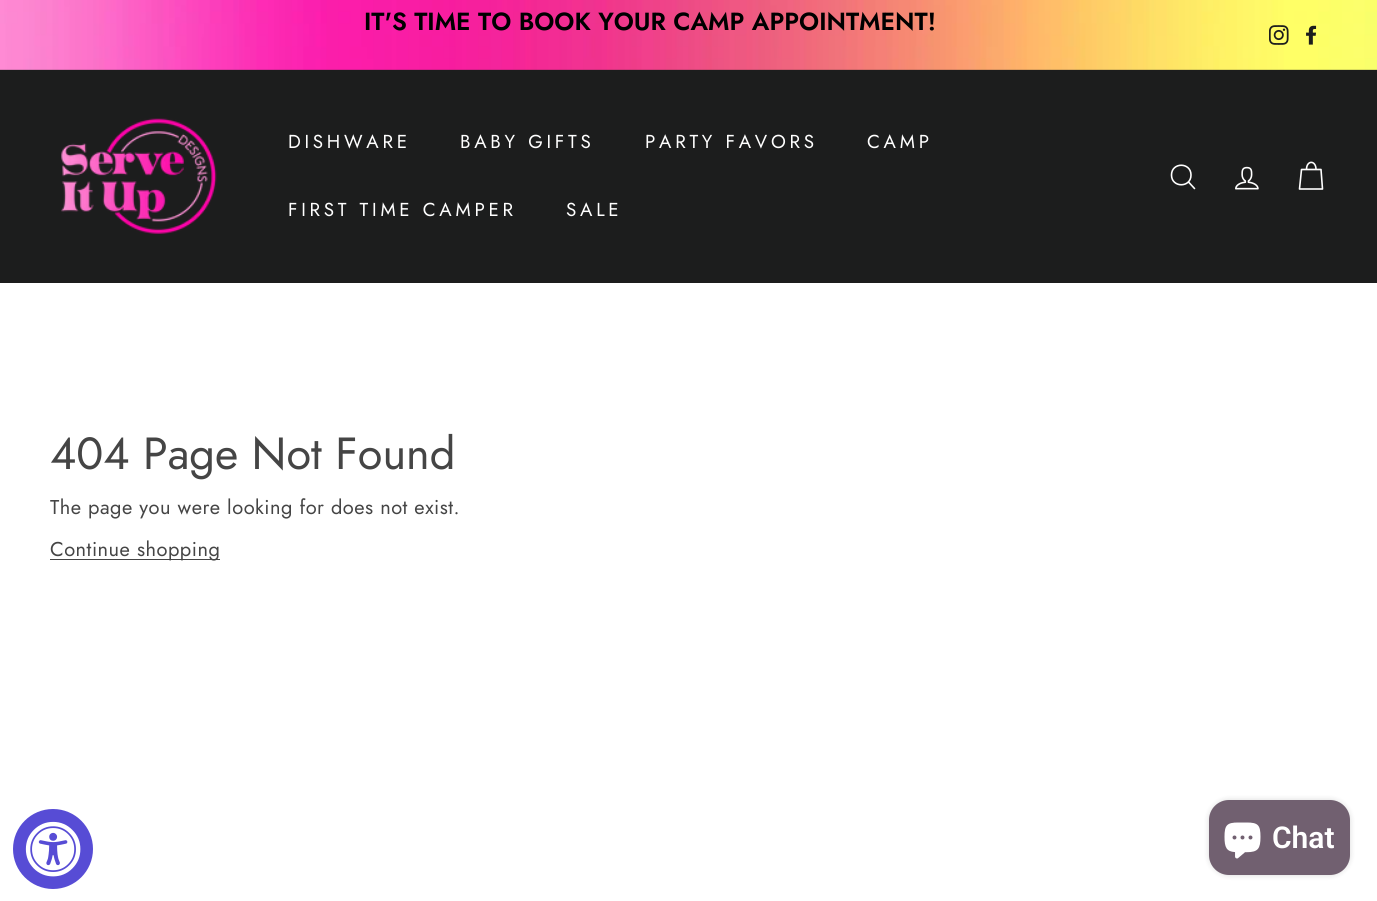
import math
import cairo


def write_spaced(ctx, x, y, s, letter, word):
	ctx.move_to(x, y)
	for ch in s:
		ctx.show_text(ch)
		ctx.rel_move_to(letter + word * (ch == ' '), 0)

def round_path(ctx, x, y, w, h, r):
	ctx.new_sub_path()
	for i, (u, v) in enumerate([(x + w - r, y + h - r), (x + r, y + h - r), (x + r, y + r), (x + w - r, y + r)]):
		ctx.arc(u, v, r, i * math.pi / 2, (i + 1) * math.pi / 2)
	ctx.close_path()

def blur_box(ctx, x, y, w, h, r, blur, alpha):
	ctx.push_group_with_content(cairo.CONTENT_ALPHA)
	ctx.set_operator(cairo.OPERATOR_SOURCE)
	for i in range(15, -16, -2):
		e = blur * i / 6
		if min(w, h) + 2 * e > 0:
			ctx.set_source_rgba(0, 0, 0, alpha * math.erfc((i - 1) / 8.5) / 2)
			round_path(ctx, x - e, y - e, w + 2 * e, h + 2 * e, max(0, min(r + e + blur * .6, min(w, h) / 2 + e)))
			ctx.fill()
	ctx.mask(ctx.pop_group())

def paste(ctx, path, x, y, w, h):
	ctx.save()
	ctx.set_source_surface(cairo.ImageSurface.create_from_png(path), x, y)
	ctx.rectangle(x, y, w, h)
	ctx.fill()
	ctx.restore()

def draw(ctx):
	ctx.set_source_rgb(1, 1, 1)
	ctx.paint()
	paste(ctx, 'media/1.png', 0, 0, 1377, 70)
	ctx.select_font_face('Jost SemiBold')
	ctx.set_font_size(24.75)
	ctx.set_source_rgb(0, 0, 0)
	ctx.move_to(364, 30)
	ctx.show_text('IT\'S TIME TO BOOK YOUR CAMP APPOINTMENT!')
	paste(ctx, 'media/2.png', 1269, 25, 20, 20)
	paste(ctx, 'media/3.png', 1306, 25, 11, 20)
	ctx.set_source_rgba(0.11, 0.114, 0.114, 0.15)
	ctx.rectangle(0, 69, 1377, 1)
	ctx.fill()
	ctx.set_source_rgb(0.11, 0.114, 0.114)
	ctx.rectangle(0, 70, 1377, 213)
	ctx.fill()
	paste(ctx, 'media/4.png', 61, 118, 156, 116)
	ctx.select_font_face('Jost')
	ctx.set_font_size(18.75)
	ctx.set_source_rgb(1, 1, 1)
	for x, y, s in [
		(288, 148, 'DISHWARE'),
		(460, 148, 'BABY GIFTS'),
		(645, 148, 'PARTY FAVORS'),
		(867, 148, 'CAMP'),
		(288, 216, 'FIRST TIME CAMPER'),
		(566, 216, 'SALE'),
	]:
		write_spaced(ctx, x, y, s, 3.75, 0)
	ctx.new_path()
	ctx.move_to(1191, 175)
	ctx.curve_to(1191, 188, 1171.5, 188, 1171.5, 175)
	ctx.curve_to(1171.5, 162, 1191, 162, 1191, 175)
	ctx.close_path()
	ctx.move_to(1194.5, 188.5)
	ctx.line_to(1188.5, 182)
	ctx.set_line_width(1.6)
	ctx.set_line_cap(cairo.LINE_CAP_ROUND)
	ctx.set_line_join(cairo.LINE_JOIN_ROUND)
	ctx.stroke()
	paste(ctx, 'media/5.png', 1235, 166, 24, 24)
	ctx.new_path()
	ctx.move_to(1306.5, 169.5)
	ctx.curve_to(1306.5, 160, 1316, 160, 1316, 169.5)
	ctx.move_to(1301.5, 169.5)
	ctx.line_to(1321, 169.5)
	ctx.line_to(1322.5, 189)
	ctx.line_to(1299.5, 189)
	ctx.close_path()
	ctx.stroke()
	ctx.set_font_size(45)
	ctx.set_source_rgb(0.271, 0.271, 0.271)
	ctx.move_to(50, 469)
	ctx.show_text('404 Page Not Found')
	ctx.set_font_size(20)
	write_spaced(ctx, 50, 514, 'The page you were looking for does not exist.', 0.5, 0)
	ctx.rectangle(50, 559, 170, 1)
	ctx.fill()
	write_spaced(ctx, 50, 556, 'Continue shopping', 0.5, 0)
	ctx.set_source_rgb(0.341, 0.298, 0.835)
	ctx.new_path()
	ctx.arc(53, 849, 40, 0, 2 * math.pi)
	ctx.fill()
	paste(ctx, 'media/6.png', 25, 821, 56, 56)
	ctx.set_source_rgb(0, 0, 0)
	blur_box(ctx, 1209, 800, 141, 75, 20, 3, 0.15)
	ctx.set_source_rgb(0.443, 0.376, 0.439)
	round_path(ctx, 1209, 800, 141, 75, 20)
	ctx.fill()
	paste(ctx, 'media/7.png', 1224, 822, 37, 37)
	ctx.select_font_face('Roboto SemiBold')
	ctx.set_font_size(30)
	ctx.set_source_rgb(1, 1, 1)
	ctx.move_to(1272, 848)
	ctx.show_text('Chat')


surface = cairo.ImageSurface(cairo.FORMAT_RGB24, 1377, 901)
ctx = cairo.Context(surface)
options = cairo.FontOptions()
options.set_hint_metrics(cairo.HINT_METRICS_OFF)
options.set_hint_style(cairo.HINT_STYLE_NONE)
ctx.set_font_options(options)
ctx.set_miter_limit(4)
draw(ctx)
surface.write_to_png('image.png')
